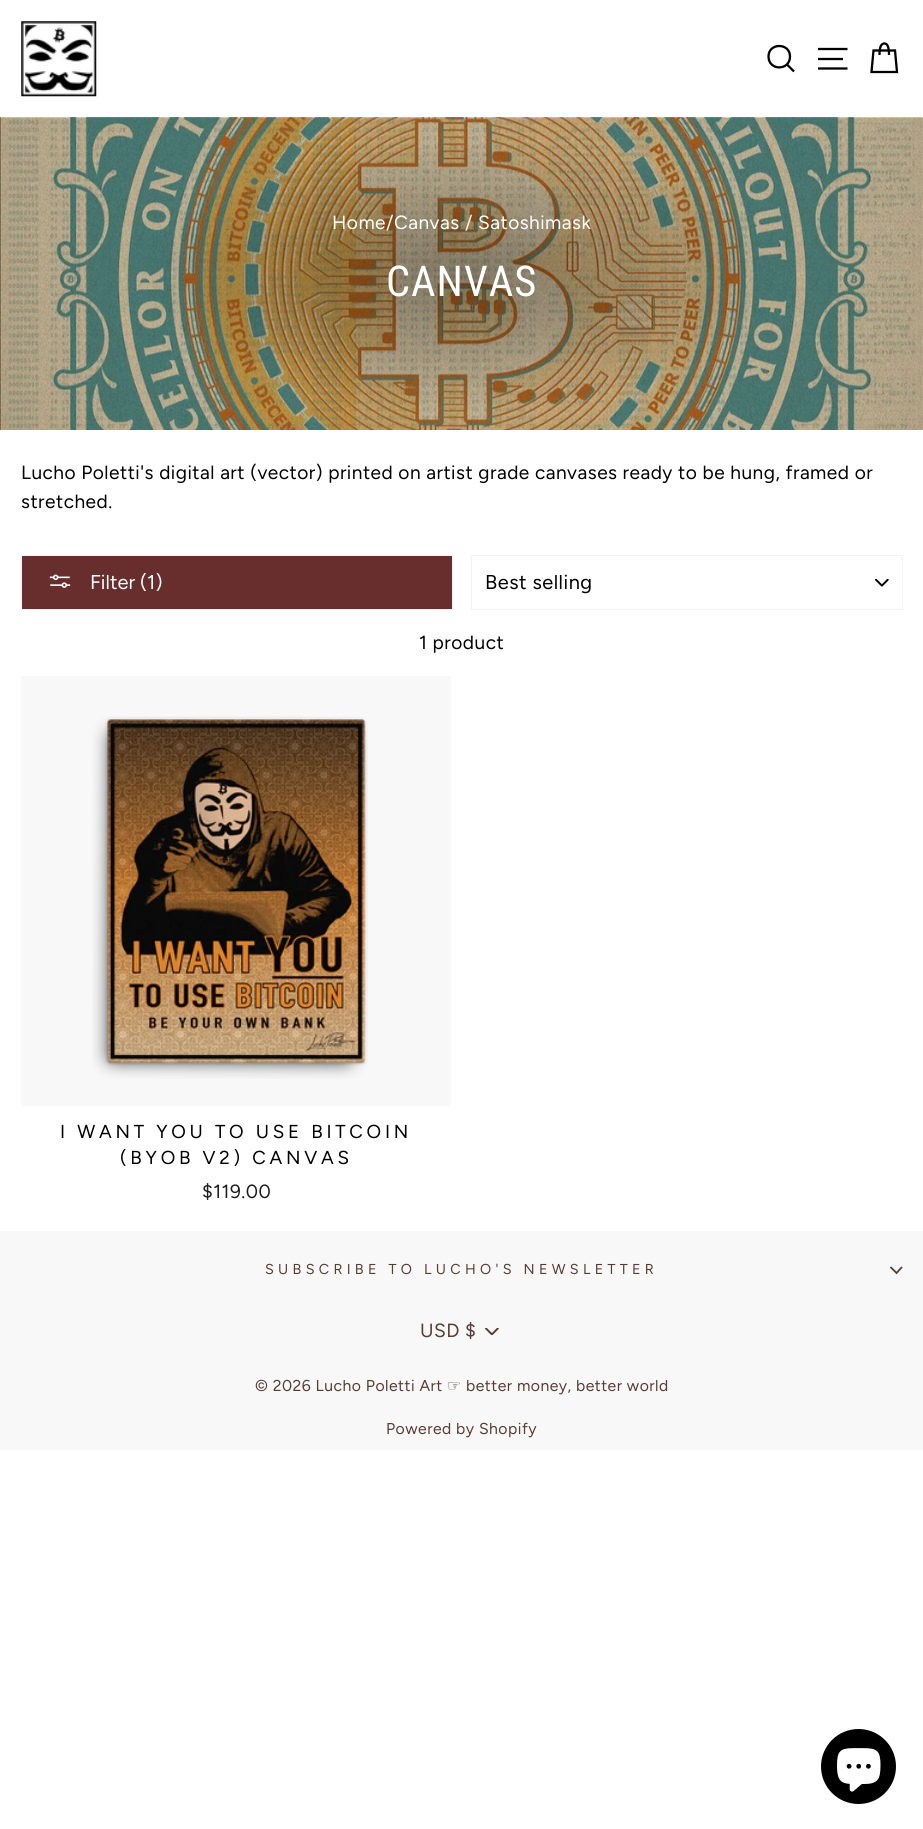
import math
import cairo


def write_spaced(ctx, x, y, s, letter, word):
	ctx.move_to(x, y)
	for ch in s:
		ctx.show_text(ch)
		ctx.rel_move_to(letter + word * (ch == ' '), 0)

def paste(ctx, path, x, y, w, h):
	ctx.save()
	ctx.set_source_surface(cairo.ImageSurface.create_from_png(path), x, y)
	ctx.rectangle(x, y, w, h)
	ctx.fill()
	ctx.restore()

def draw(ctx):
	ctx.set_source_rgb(1, 1, 1)
	ctx.paint()
	paste(ctx, 'media/1.png', 21, 21, 76, 76)
	ctx.new_path()
	ctx.move_to(790, 56.5)
	ctx.curve_to(790, 71, 768.5, 71, 768.5, 56.5)
	ctx.curve_to(768.5, 42.5, 790, 42.5, 790, 56.5)
	ctx.close_path()
	ctx.move_to(794, 71.5)
	ctx.line_to(787, 64.5)
	ctx.set_source_rgb(0, 0, 0)
	ctx.set_line_width(2.3)
	ctx.stroke()
	ctx.new_path()
	ctx.move_to(818, 49)
	ctx.line_to(847.5, 49)
	ctx.move_to(818, 59)
	ctx.line_to(843, 59)
	ctx.move_to(818, 68.5)
	ctx.line_to(847.5, 68.5)
	ctx.stroke()
	ctx.new_path()
	ctx.move_to(879.5, 55)
	ctx.curve_to(879.5, 46, 881.5, 43.5, 884.5, 43.5)
	ctx.curve_to(887, 43.5, 889, 46, 889, 55)
	ctx.move_to(873.5, 50.5)
	ctx.line_to(895, 50.5)
	ctx.line_to(897, 72)
	ctx.line_to(871.5, 72)
	ctx.close_path()
	ctx.stroke()
	paste(ctx, 'media/2.png', 0, 117, 923, 313)
	ctx.select_font_face('Figtree')
	ctx.set_font_size(19.1)
	ctx.set_source_rgb(1, 1, 1)
	write_spaced(ctx, 332, 229, 'Home', 0.48, 0)
	ctx.set_source_rgb(0.949, 0.949, 0.949)
	write_spaced(ctx, 386, 229, '/', 0.48, 0)
	ctx.set_source_rgb(1, 1, 1)
	write_spaced(ctx, 394, 229, 'Canvas', 0.48, 0)
	ctx.set_source_rgb(0.949, 0.949, 0.949)
	write_spaced(ctx, 465, 229, '/', 0.48, 0)
	ctx.set_source_rgb(1, 1, 1)
	write_spaced(ctx, 478, 229, 'Satoshimask', 0.48, 0)
	ctx.select_font_face('Roboto Condensed')
	ctx.set_font_size(42.5)
	write_spaced(ctx, 386, 296, 'CANVAS', 1, 0)
	ctx.select_font_face('Figtree')
	ctx.set_font_size(19.1)
	ctx.set_source_rgb(0, 0, 0)
	write_spaced(ctx, 21, 479, 'Lucho Poletti\'s digital art (vector) printed on artist grade canvases ready to be hung, framed or', 0.48, 0)
	write_spaced(ctx, 21, 508, 'stretched.', 0.48, 0)
	ctx.set_source_rgb(0.408, 0.176, 0.176)
	ctx.rectangle(21.5, 555.5, 431, 54)
	ctx.fill_preserve()
	ctx.set_source_rgb(0.949, 0.949, 0.949)
	ctx.set_line_width(1)
	ctx.stroke()
	paste(ctx, 'media/3.png', 49, 574, 22, 14)
	ctx.set_font_size(20)
	ctx.set_source_rgb(1, 1, 1)
	ctx.move_to(90, 589)
	ctx.show_text('Filter (1)')
	paste(ctx, 'media/4.png', 875, 579, 14, 8)
	ctx.rectangle(471.5, 555.5, 431, 54)
	ctx.set_source_rgb(0.949, 0.949, 0.949)
	ctx.stroke()
	ctx.set_source_rgb(0, 0, 0)
	write_spaced(ctx, 485, 589, 'Best selling', 0.5, 0)
	ctx.set_font_size(19.1)
	write_spaced(ctx, 419, 649, '1 product', 0.48, 0)
	ctx.set_source_rgb(0.969, 0.969, 0.976)
	ctx.rectangle(21, 676, 430, 430)
	ctx.fill()
	paste(ctx, 'media/5.png', 92, 716, 276, 363)
	ctx.set_font_size(18.75)
	ctx.set_source_rgb(0, 0, 0)
	write_spaced(ctx, 60, 1138, 'I WANT YOU TO USE BITCOIN', 3.75, 0)
	write_spaced(ctx, 120, 1164, '(BYOB V2) CANVAS', 3.75, 0)
	ctx.set_font_size(19.1)
	ctx.set_source_rgb(0.11, 0.114, 0.114)
	write_spaced(ctx, 202, 1198, '$119.00', 0.48, 0)
	ctx.set_source_rgb(0.969, 0.969, 0.976)
	ctx.rectangle(0, 1231, 923, 219)
	ctx.fill()
	ctx.set_font_size(14.35)
	ctx.set_source_rgb(0.349, 0.231, 0.196)
	write_spaced(ctx, 265, 1274, 'SUBSCRIBE TO LUCHO\'S NEWSLETTER', 4.3, 0)
	ctx.new_path()
	ctx.move_to(890.5, 1267)
	ctx.line_to(896.5, 1273)
	ctx.line_to(902, 1267)
	ctx.set_line_width(1.8)
	ctx.stroke()
	paste(ctx, 'media/6.png', 485, 1328, 14, 7)
	ctx.set_font_size(19.1)
	write_spaced(ctx, 420, 1337, 'USD $', 0.48, 0)
	ctx.set_font_size(15.75)
	write_spaced(ctx, 255, 1391, '© 2026 Lucho Poletti Art', 0.48, 0)
	ctx.select_font_face('DejaVu Sans')
	write_spaced(ctx, 447, 1391, '☞', 0.48, 0)
	ctx.select_font_face('Figtree')
	write_spaced(ctx, 466, 1391, 'better money, better world', 0.48, 0)
	write_spaced(ctx, 386, 1434, 'Powered by Shopify', 0.48, 0)
	ctx.set_source_rgb(0, 0, 0)
	ctx.new_path()
	ctx.arc(858.5, 1766.5, 37.5, 0, 2 * math.pi)
	ctx.fill()
	paste(ctx, 'media/7.png', 837, 1748, 44, 44)


surface = cairo.ImageSurface(cairo.FORMAT_RGB24, 923, 1829)
ctx = cairo.Context(surface)
options = cairo.FontOptions()
options.set_hint_metrics(cairo.HINT_METRICS_OFF)
options.set_hint_style(cairo.HINT_STYLE_NONE)
ctx.set_font_options(options)
ctx.set_miter_limit(4)
draw(ctx)
surface.write_to_png('image.png')
